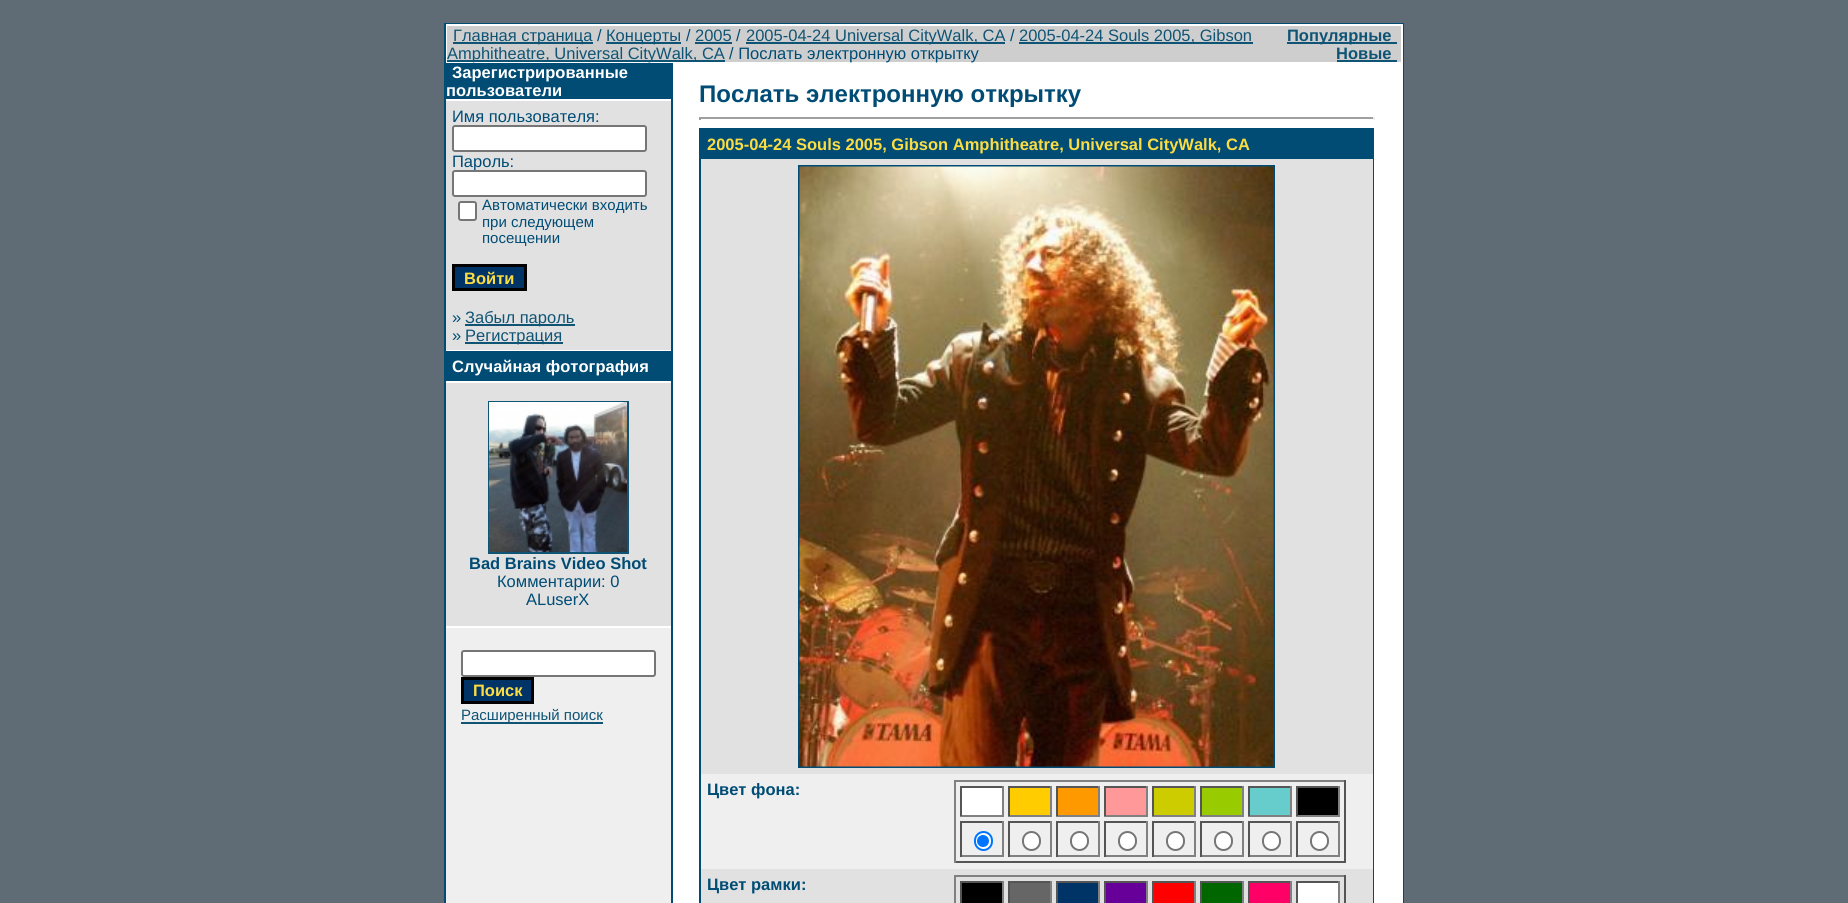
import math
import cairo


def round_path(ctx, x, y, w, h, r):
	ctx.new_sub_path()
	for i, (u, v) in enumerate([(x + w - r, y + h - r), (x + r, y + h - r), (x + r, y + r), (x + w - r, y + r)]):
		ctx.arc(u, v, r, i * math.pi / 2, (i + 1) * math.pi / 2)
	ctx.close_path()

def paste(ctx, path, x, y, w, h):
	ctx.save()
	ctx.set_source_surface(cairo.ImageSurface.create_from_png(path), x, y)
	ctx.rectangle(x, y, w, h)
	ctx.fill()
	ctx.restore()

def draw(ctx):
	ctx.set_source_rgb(0.373, 0.424, 0.463)
	ctx.paint()
	ctx.set_source_rgb(0, 0.298, 0.459)
	ctx.rectangle(444, 23, 960, 880)
	ctx.fill()
	ctx.set_source_rgb(1, 1, 1)
	ctx.rectangle(446, 24, 957, 879)
	ctx.fill()
	ctx.set_source_rgb(0.808, 0.808, 0.808)
	ctx.rectangle(447, 26, 954, 36)
	ctx.fill()
	ctx.set_source_rgb(0.059, 0.329, 0.459)
	ctx.rectangle(453, 42, 140, 2)
	ctx.fill()
	ctx.select_font_face('Liberation Sans')
	ctx.set_font_size(16.5)
	ctx.move_to(453, 41)
	ctx.show_text('Главная страница')
	ctx.set_source_rgb(0, 0.298, 0.459)
	ctx.move_to(597, 41)
	ctx.show_text('/')
	ctx.set_source_rgb(0.059, 0.329, 0.459)
	ctx.rectangle(606, 42, 75, 2)
	ctx.fill()
	ctx.move_to(606, 41)
	ctx.show_text('Концерты')
	ctx.set_source_rgb(0, 0.298, 0.459)
	ctx.move_to(686, 41)
	ctx.show_text('/')
	ctx.set_source_rgb(0.059, 0.329, 0.459)
	ctx.move_to(695, 41)
	ctx.show_text('2005')
	ctx.rectangle(695, 42, 37, 2)
	ctx.fill()
	ctx.set_source_rgb(0, 0.298, 0.459)
	ctx.move_to(736, 41)
	ctx.show_text('/')
	ctx.set_source_rgb(0.059, 0.329, 0.459)
	ctx.rectangle(746, 42, 259, 2)
	ctx.fill()
	ctx.move_to(746, 41)
	ctx.show_text('2005-04-24 Universal CityWalk, CA')
	ctx.set_source_rgb(0, 0.298, 0.459)
	ctx.move_to(1010, 41)
	ctx.show_text('/')
	ctx.set_source_rgb(0.059, 0.329, 0.459)
	ctx.rectangle(1019, 42, 234, 2)
	ctx.fill()
	ctx.move_to(1019, 41)
	ctx.show_text('2005-04-24 Souls 2005, Gibson')
	ctx.rectangle(447, 60, 278, 2)
	ctx.fill()
	ctx.move_to(447, 59)
	ctx.show_text('Amphitheatre, Universal CityWalk, CA')
	ctx.set_source_rgb(0, 0.298, 0.459)
	ctx.move_to(729, 59)
	ctx.show_text('/ Послать электронную открытку')
	ctx.set_source_rgb(0.059, 0.329, 0.459)
	ctx.rectangle(1287, 42, 110, 2)
	ctx.fill()
	ctx.select_font_face('Liberation Sans', cairo.FONT_SLANT_NORMAL, cairo.FONT_WEIGHT_BOLD)
	ctx.move_to(1287, 41)
	ctx.show_text('Популярные')
	ctx.move_to(1336, 59)
	ctx.show_text('Новые')
	ctx.rectangle(1337, 60, 60, 2)
	ctx.fill()
	ctx.set_source_rgb(0.937, 0.937, 0.937)
	ctx.rectangle(446, 628, 225, 275)
	ctx.fill()
	ctx.set_source_rgb(0, 0.298, 0.459)
	ctx.rectangle(446, 63, 225, 36)
	ctx.fill()
	ctx.set_source_rgb(1, 1, 1)
	ctx.move_to(452, 78)
	ctx.show_text('Зарегистрированные')
	ctx.move_to(446, 96)
	ctx.show_text('пользователи')
	ctx.set_source_rgb(0.882, 0.882, 0.882)
	ctx.rectangle(446, 101, 225, 249)
	ctx.fill()
	ctx.select_font_face('Liberation Sans')
	ctx.set_source_rgb(0, 0.298, 0.459)
	ctx.move_to(452, 122)
	ctx.show_text('Имя пользователя:')
	ctx.set_source_rgb(1, 1, 1)
	round_path(ctx, 453, 126, 193, 25, 2)
	ctx.fill_preserve()
	ctx.set_source_rgb(0.463, 0.463, 0.463)
	ctx.stroke()
	ctx.set_source_rgb(0, 0.298, 0.459)
	ctx.move_to(452, 167)
	ctx.show_text('Пароль:')
	ctx.set_source_rgb(1, 1, 1)
	round_path(ctx, 453, 171, 193, 25, 2)
	ctx.fill_preserve()
	ctx.set_source_rgb(0.463, 0.463, 0.463)
	ctx.stroke()
	ctx.set_source_rgb(1, 1, 1)
	round_path(ctx, 459, 202, 17, 18, 2)
	ctx.fill_preserve()
	ctx.set_source_rgb(0.463, 0.463, 0.463)
	ctx.stroke()
	ctx.set_font_size(15)
	ctx.set_source_rgb(0, 0.298, 0.459)
	for x, y, s in [
		(482, 210, 'Автоматически входить'),
		(482, 227, 'при следующем'),
		(482, 243, 'посещении'),
	]:
		ctx.move_to(x, y)
		ctx.show_text(s)
	ctx.set_source_rgb(0, 0.2, 0.4)
	ctx.rectangle(453.5, 265.5, 72, 24)
	ctx.fill_preserve()
	ctx.set_source_rgb(0, 0, 0)
	ctx.set_line_width(3)
	ctx.stroke()
	ctx.select_font_face('Liberation Sans', cairo.FONT_SLANT_NORMAL, cairo.FONT_WEIGHT_BOLD)
	ctx.set_font_size(16.5)
	ctx.set_source_rgb(0.988, 0.863, 0.263)
	ctx.move_to(464, 284)
	ctx.show_text('Войти')
	ctx.select_font_face('Liberation Sans')
	ctx.set_source_rgb(0, 0.298, 0.459)
	ctx.move_to(452, 323)
	ctx.show_text('»')
	ctx.set_source_rgb(0.059, 0.329, 0.459)
	ctx.rectangle(465, 324, 110, 2)
	ctx.fill()
	ctx.move_to(465, 323)
	ctx.show_text('Забыл пароль')
	ctx.set_source_rgb(0, 0.298, 0.459)
	ctx.move_to(452, 341)
	ctx.show_text('»')
	ctx.set_source_rgb(0.059, 0.329, 0.459)
	ctx.rectangle(465, 342, 98, 2)
	ctx.fill()
	ctx.move_to(465, 341)
	ctx.show_text('Регистрация')
	ctx.set_source_rgb(0, 0.298, 0.459)
	ctx.rectangle(446, 351, 225, 30)
	ctx.fill()
	ctx.select_font_face('Liberation Sans', cairo.FONT_SLANT_NORMAL, cairo.FONT_WEIGHT_BOLD)
	ctx.set_source_rgb(1, 1, 1)
	ctx.move_to(452, 372)
	ctx.show_text('Случайная фотография')
	ctx.set_source_rgb(0.882, 0.882, 0.882)
	ctx.rectangle(446, 383, 225, 243)
	ctx.fill()
	ctx.rectangle(489, 402, 139, 151)
	ctx.set_source_rgb(0.059, 0.329, 0.459)
	ctx.set_line_width(2)
	ctx.stroke()
	paste(ctx, 'media/1.png', 489, 402, 138, 150)
	ctx.set_source_rgb(0, 0.298, 0.459)
	ctx.move_to(469, 569)
	ctx.show_text('Bad Brains Video Shot')
	ctx.select_font_face('Liberation Sans')
	ctx.move_to(497, 587)
	ctx.show_text('Комментарии: 0')
	ctx.move_to(526, 605)
	ctx.show_text('ALuserX')
	ctx.set_source_rgb(1, 1, 1)
	round_path(ctx, 462, 651, 193, 25, 2)
	ctx.fill_preserve()
	ctx.set_source_rgb(0.463, 0.463, 0.463)
	ctx.stroke()
	ctx.set_source_rgb(0, 0.2, 0.4)
	ctx.rectangle(462.5, 678.5, 70, 24)
	ctx.fill_preserve()
	ctx.set_source_rgb(0, 0, 0)
	ctx.set_line_width(3)
	ctx.stroke()
	ctx.select_font_face('Liberation Sans', cairo.FONT_SLANT_NORMAL, cairo.FONT_WEIGHT_BOLD)
	ctx.set_source_rgb(0.988, 0.863, 0.263)
	ctx.move_to(473, 696)
	ctx.show_text('Поиск')
	ctx.set_source_rgb(0.059, 0.329, 0.459)
	ctx.rectangle(461, 722, 142, 2)
	ctx.fill()
	ctx.select_font_face('Liberation Sans')
	ctx.set_font_size(15)
	ctx.move_to(461, 720)
	ctx.show_text('Расширенный поиск')
	ctx.set_source_rgb(0, 0.298, 0.459)
	ctx.rectangle(671, 63, 2, 840)
	ctx.fill()
	ctx.select_font_face('Liberation Sans', cairo.FONT_SLANT_NORMAL, cairo.FONT_WEIGHT_BOLD)
	ctx.set_font_size(24)
	ctx.move_to(699, 102)
	ctx.show_text('Послать электронную открытку')
	ctx.set_source_rgb(0.624, 0.624, 0.624)
	ctx.rectangle(699, 117, 675, 2)
	ctx.fill()
	ctx.set_source_rgb(0.933, 0.933, 0.933)
	ctx.rectangle(1373, 117, 2, 3)
	ctx.fill()
	ctx.set_source_rgb(0.624, 0.624, 0.624)
	ctx.rectangle(699, 117, 2, 3)
	ctx.fill()
	ctx.set_source_rgb(0, 0.298, 0.459)
	ctx.rectangle(699, 128, 675, 775)
	ctx.fill()
	ctx.set_font_size(16.5)
	ctx.set_source_rgb(0.988, 0.863, 0.263)
	ctx.move_to(707, 150)
	ctx.show_text('2005-04-24 Souls 2005, Gibson Amphitheatre, Universal CityWalk, CA')
	ctx.set_source_rgb(0.882, 0.882, 0.882)
	ctx.rectangle(701, 159, 672, 615)
	ctx.fill()
	ctx.rectangle(799, 166, 475, 601)
	ctx.set_source_rgb(0, 0.298, 0.459)
	ctx.set_line_width(2)
	ctx.stroke()
	paste(ctx, 'media/2.png', 799, 166, 475, 601)
	ctx.set_source_rgb(0.937, 0.937, 0.937)
	ctx.rectangle(701, 774, 672, 95)
	ctx.fill()
	ctx.set_source_rgb(0, 0.298, 0.459)
	ctx.move_to(707, 795)
	ctx.show_text('Цвет фона:')
	ctx.set_source_rgb(0.502, 0.502, 0.502)
	ctx.rectangle(954, 780, 392, 2)
	ctx.fill()
	ctx.set_source_rgb(0.333, 0.333, 0.333)
	ctx.rectangle(1344, 780, 2, 83)
	ctx.rectangle(954, 861, 392, 2)
	ctx.fill()
	ctx.set_source_rgb(0.502, 0.502, 0.502)
	ctx.rectangle(954, 780, 2, 83)
	ctx.fill()
	ctx.set_source_rgb(1, 1, 1)
	ctx.rectangle(962, 788, 40, 27)
	ctx.fill()
	ctx.set_source_rgb(0.333, 0.333, 0.333)
	ctx.rectangle(960, 786, 44, 2)
	ctx.fill()
	ctx.set_source_rgb(0.502, 0.502, 0.502)
	ctx.rectangle(1002, 786, 2, 30)
	ctx.rectangle(960, 815, 44, 2)
	ctx.fill()
	ctx.set_source_rgb(0.333, 0.333, 0.333)
	ctx.rectangle(960, 786, 2, 30)
	ctx.fill()
	ctx.set_source_rgb(1, 0.8, 0)
	ctx.rectangle(1010, 788, 40, 27)
	ctx.fill()
	ctx.set_source_rgb(0.333, 0.333, 0.333)
	ctx.rectangle(1008, 786, 44, 2)
	ctx.fill()
	ctx.set_source_rgb(0.502, 0.502, 0.502)
	ctx.rectangle(1050, 786, 2, 30)
	ctx.rectangle(1008, 815, 44, 2)
	ctx.fill()
	ctx.set_source_rgb(0.333, 0.333, 0.333)
	ctx.rectangle(1008, 786, 2, 30)
	ctx.fill()
	ctx.set_source_rgb(1, 0.6, 0)
	ctx.rectangle(1058, 788, 40, 27)
	ctx.fill()
	ctx.set_source_rgb(0.333, 0.333, 0.333)
	ctx.rectangle(1056, 786, 44, 2)
	ctx.fill()
	ctx.set_source_rgb(0.502, 0.502, 0.502)
	ctx.rectangle(1098, 786, 2, 30)
	ctx.rectangle(1056, 815, 44, 2)
	ctx.fill()
	ctx.set_source_rgb(0.333, 0.333, 0.333)
	ctx.rectangle(1056, 786, 2, 30)
	ctx.fill()
	ctx.set_source_rgb(1, 0.6, 0.6)
	ctx.rectangle(1106, 788, 40, 27)
	ctx.fill()
	ctx.set_source_rgb(0.333, 0.333, 0.333)
	ctx.rectangle(1104, 786, 44, 2)
	ctx.fill()
	ctx.set_source_rgb(0.502, 0.502, 0.502)
	ctx.rectangle(1146, 786, 2, 30)
	ctx.rectangle(1104, 815, 44, 2)
	ctx.fill()
	ctx.set_source_rgb(0.333, 0.333, 0.333)
	ctx.rectangle(1104, 786, 2, 30)
	ctx.fill()
	ctx.set_source_rgb(0.8, 0.8, 0)
	ctx.rectangle(1154, 788, 40, 27)
	ctx.fill()
	ctx.set_source_rgb(0.333, 0.333, 0.333)
	ctx.rectangle(1152, 786, 44, 2)
	ctx.fill()
	ctx.set_source_rgb(0.502, 0.502, 0.502)
	ctx.rectangle(1194, 786, 2, 30)
	ctx.rectangle(1152, 815, 44, 2)
	ctx.fill()
	ctx.set_source_rgb(0.333, 0.333, 0.333)
	ctx.rectangle(1152, 786, 2, 30)
	ctx.fill()
	ctx.set_source_rgb(0.6, 0.8, 0)
	ctx.rectangle(1202, 788, 40, 27)
	ctx.fill()
	ctx.set_source_rgb(0.333, 0.333, 0.333)
	ctx.rectangle(1200, 786, 44, 2)
	ctx.fill()
	ctx.set_source_rgb(0.502, 0.502, 0.502)
	ctx.rectangle(1242, 786, 2, 30)
	ctx.rectangle(1200, 815, 44, 2)
	ctx.fill()
	ctx.set_source_rgb(0.333, 0.333, 0.333)
	ctx.rectangle(1200, 786, 2, 30)
	ctx.fill()
	ctx.set_source_rgb(0.4, 0.8, 0.8)
	ctx.rectangle(1250, 788, 40, 27)
	ctx.fill()
	ctx.set_source_rgb(0.333, 0.333, 0.333)
	ctx.rectangle(1248, 786, 44, 2)
	ctx.fill()
	ctx.set_source_rgb(0.502, 0.502, 0.502)
	ctx.rectangle(1290, 786, 2, 30)
	ctx.rectangle(1248, 815, 44, 2)
	ctx.fill()
	ctx.set_source_rgb(0.333, 0.333, 0.333)
	ctx.rectangle(1248, 786, 2, 30)
	ctx.fill()
	ctx.set_source_rgb(0, 0, 0)
	ctx.rectangle(1298, 788, 40, 27)
	ctx.fill()
	ctx.set_source_rgb(0.333, 0.333, 0.333)
	ctx.rectangle(1296, 786, 44, 2)
	ctx.fill()
	ctx.set_source_rgb(0.502, 0.502, 0.502)
	ctx.rectangle(1338, 786, 2, 30)
	ctx.rectangle(1296, 815, 44, 2)
	ctx.fill()
	ctx.set_source_rgb(0.333, 0.333, 0.333)
	ctx.rectangle(1296, 786, 2, 30)
	ctx.rectangle(960, 821, 44, 2)
	ctx.fill()
	ctx.set_source_rgb(0.502, 0.502, 0.502)
	ctx.rectangle(1002, 821, 2, 36)
	ctx.rectangle(960, 855, 44, 2)
	ctx.fill()
	ctx.set_source_rgb(0.333, 0.333, 0.333)
	ctx.rectangle(960, 821, 2, 36)
	ctx.fill()
	ctx.set_source_rgb(1, 1, 1)
	round_path(ctx, 975, 832, 17, 18, 8.5)
	ctx.fill_preserve()
	ctx.set_source_rgb(0, 0.459, 1)
	ctx.stroke()
	ctx.arc(983, 841, 6, 0, 2 * math.pi)
	ctx.fill()
	ctx.set_source_rgb(0.333, 0.333, 0.333)
	ctx.rectangle(1008, 821, 44, 2)
	ctx.fill()
	ctx.set_source_rgb(0.502, 0.502, 0.502)
	ctx.rectangle(1050, 821, 2, 36)
	ctx.rectangle(1008, 855, 44, 2)
	ctx.fill()
	ctx.set_source_rgb(0.333, 0.333, 0.333)
	ctx.rectangle(1008, 821, 2, 36)
	ctx.fill()
	ctx.set_source_rgb(1, 1, 1)
	round_path(ctx, 1023, 832, 17, 18, 8.5)
	ctx.fill_preserve()
	ctx.set_source_rgb(0.463, 0.463, 0.463)
	ctx.stroke()
	ctx.set_source_rgb(0.333, 0.333, 0.333)
	ctx.rectangle(1056, 821, 44, 2)
	ctx.fill()
	ctx.set_source_rgb(0.502, 0.502, 0.502)
	ctx.rectangle(1098, 821, 2, 36)
	ctx.rectangle(1056, 855, 44, 2)
	ctx.fill()
	ctx.set_source_rgb(0.333, 0.333, 0.333)
	ctx.rectangle(1056, 821, 2, 36)
	ctx.fill()
	ctx.set_source_rgb(1, 1, 1)
	round_path(ctx, 1071, 832, 17, 18, 8.5)
	ctx.fill_preserve()
	ctx.set_source_rgb(0.463, 0.463, 0.463)
	ctx.stroke()
	ctx.set_source_rgb(0.333, 0.333, 0.333)
	ctx.rectangle(1104, 821, 44, 2)
	ctx.fill()
	ctx.set_source_rgb(0.502, 0.502, 0.502)
	ctx.rectangle(1146, 821, 2, 36)
	ctx.rectangle(1104, 855, 44, 2)
	ctx.fill()
	ctx.set_source_rgb(0.333, 0.333, 0.333)
	ctx.rectangle(1104, 821, 2, 36)
	ctx.fill()
	ctx.set_source_rgb(1, 1, 1)
	round_path(ctx, 1119, 832, 17, 18, 8.5)
	ctx.fill_preserve()
	ctx.set_source_rgb(0.463, 0.463, 0.463)
	ctx.stroke()
	ctx.set_source_rgb(0.333, 0.333, 0.333)
	ctx.rectangle(1152, 821, 44, 2)
	ctx.fill()
	ctx.set_source_rgb(0.502, 0.502, 0.502)
	ctx.rectangle(1194, 821, 2, 36)
	ctx.rectangle(1152, 855, 44, 2)
	ctx.fill()
	ctx.set_source_rgb(0.333, 0.333, 0.333)
	ctx.rectangle(1152, 821, 2, 36)
	ctx.fill()
	ctx.set_source_rgb(1, 1, 1)
	round_path(ctx, 1167, 832, 17, 18, 8.5)
	ctx.fill_preserve()
	ctx.set_source_rgb(0.463, 0.463, 0.463)
	ctx.stroke()
	ctx.set_source_rgb(0.333, 0.333, 0.333)
	ctx.rectangle(1200, 821, 44, 2)
	ctx.fill()
	ctx.set_source_rgb(0.502, 0.502, 0.502)
	ctx.rectangle(1242, 821, 2, 36)
	ctx.rectangle(1200, 855, 44, 2)
	ctx.fill()
	ctx.set_source_rgb(0.333, 0.333, 0.333)
	ctx.rectangle(1200, 821, 2, 36)
	ctx.fill()
	ctx.set_source_rgb(1, 1, 1)
	round_path(ctx, 1215, 832, 17, 18, 8.5)
	ctx.fill_preserve()
	ctx.set_source_rgb(0.463, 0.463, 0.463)
	ctx.stroke()
	ctx.set_source_rgb(0.333, 0.333, 0.333)
	ctx.rectangle(1248, 821, 44, 2)
	ctx.fill()
	ctx.set_source_rgb(0.502, 0.502, 0.502)
	ctx.rectangle(1290, 821, 2, 36)
	ctx.rectangle(1248, 855, 44, 2)
	ctx.fill()
	ctx.set_source_rgb(0.333, 0.333, 0.333)
	ctx.rectangle(1248, 821, 2, 36)
	ctx.fill()
	ctx.set_source_rgb(1, 1, 1)
	round_path(ctx, 1263, 832, 17, 18, 8.5)
	ctx.fill_preserve()
	ctx.set_source_rgb(0.463, 0.463, 0.463)
	ctx.stroke()
	ctx.set_source_rgb(0.333, 0.333, 0.333)
	ctx.rectangle(1296, 821, 44, 2)
	ctx.fill()
	ctx.set_source_rgb(0.502, 0.502, 0.502)
	ctx.rectangle(1338, 821, 2, 36)
	ctx.rectangle(1296, 855, 44, 2)
	ctx.fill()
	ctx.set_source_rgb(0.333, 0.333, 0.333)
	ctx.rectangle(1296, 821, 2, 36)
	ctx.fill()
	ctx.set_source_rgb(1, 1, 1)
	round_path(ctx, 1311, 832, 17, 18, 8.5)
	ctx.fill_preserve()
	ctx.set_source_rgb(0.463, 0.463, 0.463)
	ctx.stroke()
	ctx.set_source_rgb(0.882, 0.882, 0.882)
	ctx.rectangle(701, 869, 672, 34)
	ctx.fill()
	ctx.set_source_rgb(0, 0.298, 0.459)
	ctx.move_to(707, 890)
	ctx.show_text('Цвет рамки:')
	ctx.set_source_rgb(0.502, 0.502, 0.502)
	ctx.rectangle(954, 875, 392, 2)
	ctx.fill()
	ctx.set_source_rgb(0.333, 0.333, 0.333)
	ctx.rectangle(1344, 875, 2, 28)
	ctx.fill()
	ctx.set_source_rgb(0.502, 0.502, 0.502)
	ctx.rectangle(954, 875, 2, 28)
	ctx.fill()
	ctx.set_source_rgb(0, 0, 0)
	ctx.rectangle(962, 883, 40, 20)
	ctx.fill()
	ctx.set_source_rgb(0.333, 0.333, 0.333)
	ctx.rectangle(960, 881, 44, 2)
	ctx.fill()
	ctx.set_source_rgb(0.502, 0.502, 0.502)
	ctx.rectangle(1002, 881, 2, 22)
	ctx.fill()
	ctx.set_source_rgb(0.333, 0.333, 0.333)
	ctx.rectangle(960, 881, 2, 22)
	ctx.fill()
	ctx.set_source_rgb(0.4, 0.4, 0.4)
	ctx.rectangle(1010, 883, 40, 20)
	ctx.fill()
	ctx.set_source_rgb(0.333, 0.333, 0.333)
	ctx.rectangle(1008, 881, 44, 2)
	ctx.fill()
	ctx.set_source_rgb(0.502, 0.502, 0.502)
	ctx.rectangle(1050, 881, 2, 22)
	ctx.fill()
	ctx.set_source_rgb(0.333, 0.333, 0.333)
	ctx.rectangle(1008, 881, 2, 22)
	ctx.fill()
	ctx.set_source_rgb(0, 0.2, 0.4)
	ctx.rectangle(1058, 883, 40, 20)
	ctx.fill()
	ctx.set_source_rgb(0.333, 0.333, 0.333)
	ctx.rectangle(1056, 881, 44, 2)
	ctx.fill()
	ctx.set_source_rgb(0.502, 0.502, 0.502)
	ctx.rectangle(1098, 881, 2, 22)
	ctx.fill()
	ctx.set_source_rgb(0.333, 0.333, 0.333)
	ctx.rectangle(1056, 881, 2, 22)
	ctx.fill()
	ctx.set_source_rgb(0.4, 0, 0.6)
	ctx.rectangle(1106, 883, 40, 20)
	ctx.fill()
	ctx.set_source_rgb(0.333, 0.333, 0.333)
	ctx.rectangle(1104, 881, 44, 2)
	ctx.fill()
	ctx.set_source_rgb(0.502, 0.502, 0.502)
	ctx.rectangle(1146, 881, 2, 22)
	ctx.fill()
	ctx.set_source_rgb(0.333, 0.333, 0.333)
	ctx.rectangle(1104, 881, 2, 22)
	ctx.fill()
	ctx.set_source_rgb(1, 0, 0)
	ctx.rectangle(1154, 883, 40, 20)
	ctx.fill()
	ctx.set_source_rgb(0.333, 0.333, 0.333)
	ctx.rectangle(1152, 881, 44, 2)
	ctx.fill()
	ctx.set_source_rgb(0.502, 0.502, 0.502)
	ctx.rectangle(1194, 881, 2, 22)
	ctx.fill()
	ctx.set_source_rgb(0.333, 0.333, 0.333)
	ctx.rectangle(1152, 881, 2, 22)
	ctx.fill()
	ctx.set_source_rgb(0, 0.4, 0)
	ctx.rectangle(1202, 883, 40, 20)
	ctx.fill()
	ctx.set_source_rgb(0.333, 0.333, 0.333)
	ctx.rectangle(1200, 881, 44, 2)
	ctx.fill()
	ctx.set_source_rgb(0.502, 0.502, 0.502)
	ctx.rectangle(1242, 881, 2, 22)
	ctx.fill()
	ctx.set_source_rgb(0.333, 0.333, 0.333)
	ctx.rectangle(1200, 881, 2, 22)
	ctx.fill()
	ctx.set_source_rgb(1, 0, 0.4)
	ctx.rectangle(1250, 883, 40, 20)
	ctx.fill()
	ctx.set_source_rgb(0.333, 0.333, 0.333)
	ctx.rectangle(1248, 881, 44, 2)
	ctx.fill()
	ctx.set_source_rgb(0.502, 0.502, 0.502)
	ctx.rectangle(1290, 881, 2, 22)
	ctx.fill()
	ctx.set_source_rgb(0.333, 0.333, 0.333)
	ctx.rectangle(1248, 881, 2, 22)
	ctx.fill()
	ctx.set_source_rgb(1, 1, 1)
	ctx.rectangle(1298, 883, 40, 20)
	ctx.fill()
	ctx.set_source_rgb(0.333, 0.333, 0.333)
	ctx.rectangle(1296, 881, 44, 2)
	ctx.fill()
	ctx.set_source_rgb(0.502, 0.502, 0.502)
	ctx.rectangle(1338, 881, 2, 22)
	ctx.fill()
	ctx.set_source_rgb(0.333, 0.333, 0.333)
	ctx.rectangle(1296, 881, 2, 22)
	ctx.fill()


surface = cairo.ImageSurface(cairo.FORMAT_RGB24, 1848, 903)
ctx = cairo.Context(surface)
options = cairo.FontOptions()
options.set_hint_metrics(cairo.HINT_METRICS_OFF)
options.set_hint_style(cairo.HINT_STYLE_NONE)
ctx.set_font_options(options)
ctx.set_miter_limit(4)
draw(ctx)
surface.write_to_png('image.png')
